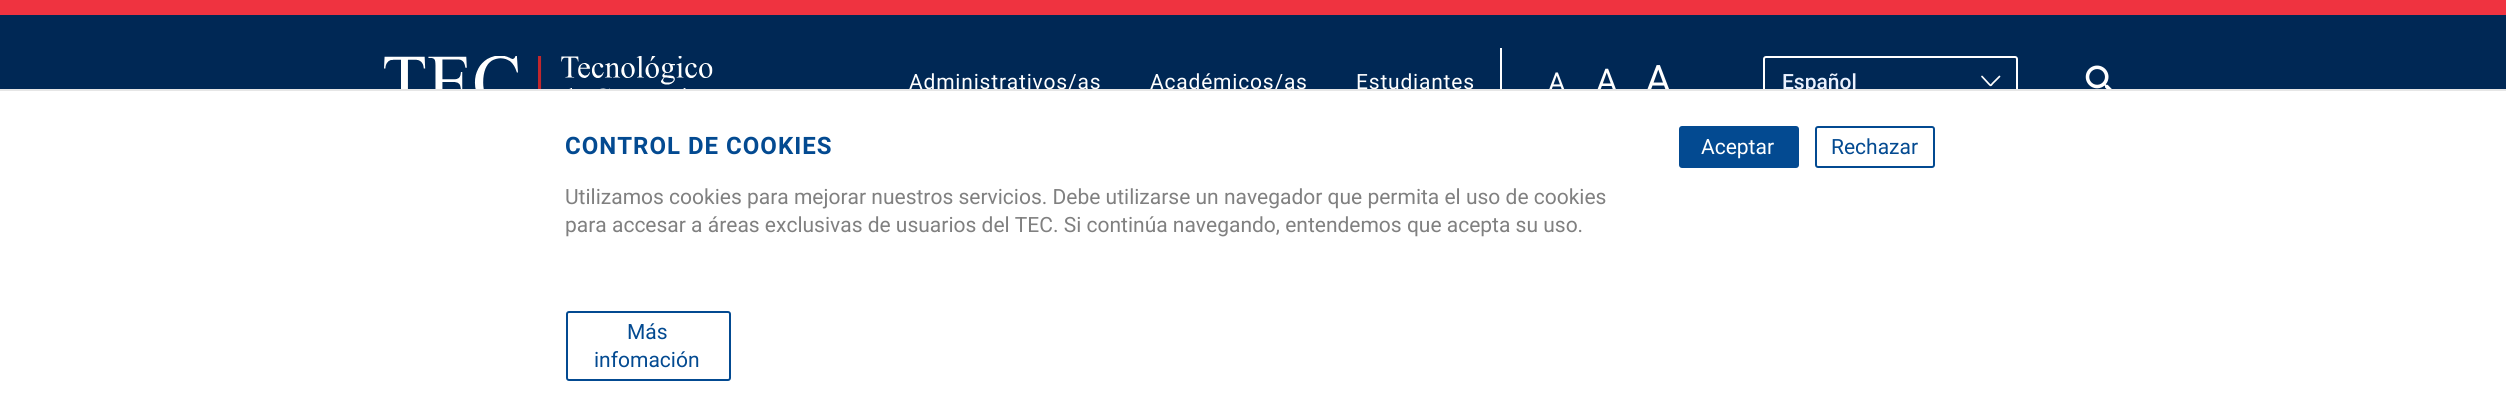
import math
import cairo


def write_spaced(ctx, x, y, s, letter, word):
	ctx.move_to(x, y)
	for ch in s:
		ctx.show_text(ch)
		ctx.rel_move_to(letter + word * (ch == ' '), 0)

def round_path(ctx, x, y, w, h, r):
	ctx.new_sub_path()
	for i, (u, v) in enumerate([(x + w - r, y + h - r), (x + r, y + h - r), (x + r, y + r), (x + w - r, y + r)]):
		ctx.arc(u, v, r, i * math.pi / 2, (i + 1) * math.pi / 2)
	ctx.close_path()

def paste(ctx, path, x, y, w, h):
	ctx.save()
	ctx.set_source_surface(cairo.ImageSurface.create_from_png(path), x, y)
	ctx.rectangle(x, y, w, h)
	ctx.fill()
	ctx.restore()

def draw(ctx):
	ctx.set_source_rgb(0, 0.157, 0.333)
	ctx.paint()
	ctx.set_source_rgb(0.937, 0.2, 0.251)
	ctx.rectangle(0, 0, 2506, 15)
	ctx.fill()
	paste(ctx, 'media/1.png', 384, 56, 329, 33)
	ctx.set_source_rgb(1, 1, 1)
	ctx.rectangle(1500, 48, 2, 41)
	ctx.fill()
	ctx.select_font_face('Roboto')
	ctx.set_font_size(21)
	for x, y, s in [
		(909, 89, 'Administrativos/as'),
		(1150, 89, 'Académicos/as'),
		(1356, 89, 'Estudiantes'),
	]:
		write_spaced(ctx, x, y, s, 0.8, 0)
	paste(ctx, 'media/2.png', 1549, 72, 16, 17)
	paste(ctx, 'media/3.png', 1597, 68, 19, 21)
	paste(ctx, 'media/4.png', 1647, 65, 22, 24)
	ctx.new_path()
	ctx.move_to(1999.5, 76.5)
	ctx.line_to(1992.5, 83.5)
	ctx.curve_to(1990.5, 86, 1991, 86, 1988.5, 83.5)
	ctx.line_to(1982, 76.5)
	ctx.set_line_width(1.7)
	ctx.set_line_cap(cairo.LINE_CAP_ROUND)
	ctx.stroke()
	round_path(ctx, 1764, 57, 253, 52, 2)
	ctx.set_line_width(2)
	ctx.set_line_cap(cairo.LINE_CAP_BUTT)
	ctx.stroke()
	ctx.select_font_face('Roboto Medium')
	ctx.set_source_rgb(0.918, 0.949, 1)
	ctx.move_to(1782, 89)
	ctx.show_text('Español')
	paste(ctx, 'media/5.png', 2085, 65, 27, 24)
	ctx.set_source_rgb(1, 1, 1)
	ctx.rectangle(0, 91, 2506, 322)
	ctx.fill()
	ctx.set_source_rgb(0.902, 0.902, 0.902)
	ctx.rectangle(0, 89, 2506, 2)
	ctx.fill()
	ctx.select_font_face('Roboto', cairo.FONT_SLANT_NORMAL, cairo.FONT_WEIGHT_BOLD)
	ctx.set_font_size(24)
	ctx.set_source_rgb(0.012, 0.29, 0.569)
	write_spaced(ctx, 565, 154, 'CONTROL DE COOKIES', 1, 0)
	ctx.select_font_face('Roboto')
	ctx.set_font_size(21)
	ctx.set_source_rgb(0.502, 0.502, 0.502)
	ctx.move_to(565, 204)
	ctx.show_text('Utilizamos cookies para mejorar nuestros servicios. Debe utilizarse un navegador que permita el uso de cookies')
	ctx.move_to(565, 232)
	ctx.show_text('para accesar a áreas exclusivas de usuarios del TEC. Si continúa navegando, entendemos que acepta su uso.')
	round_path(ctx, 567, 312, 163, 68, 2)
	ctx.set_source_rgb(0.012, 0.29, 0.569)
	ctx.stroke()
	ctx.move_to(627, 339)
	ctx.show_text('Más')
	ctx.move_to(594, 367)
	ctx.show_text('infomación')
	round_path(ctx, 1680, 127, 118, 40, 2)
	ctx.fill_preserve()
	ctx.stroke()
	ctx.set_source_rgb(1, 1, 1)
	ctx.move_to(1701, 154)
	ctx.show_text('Aceptar')
	round_path(ctx, 1816, 127, 118, 40, 2)
	ctx.set_source_rgb(0.012, 0.29, 0.569)
	ctx.stroke()
	ctx.move_to(1831, 154)
	ctx.show_text('Rechazar')


surface = cairo.ImageSurface(cairo.FORMAT_RGB24, 2506, 413)
ctx = cairo.Context(surface)
options = cairo.FontOptions()
options.set_hint_metrics(cairo.HINT_METRICS_OFF)
options.set_hint_style(cairo.HINT_STYLE_NONE)
ctx.set_font_options(options)
ctx.set_miter_limit(4)
draw(ctx)
surface.write_to_png('image.png')
